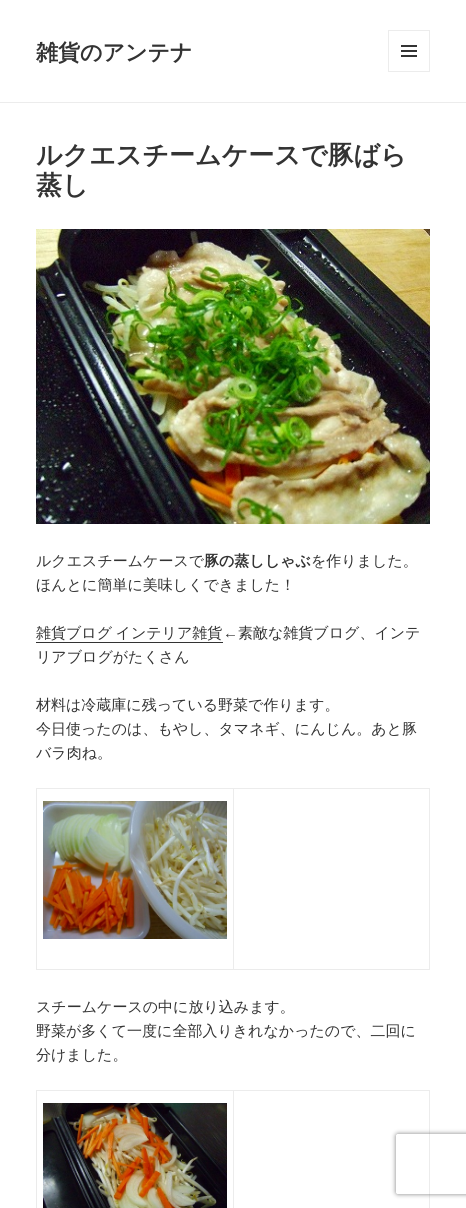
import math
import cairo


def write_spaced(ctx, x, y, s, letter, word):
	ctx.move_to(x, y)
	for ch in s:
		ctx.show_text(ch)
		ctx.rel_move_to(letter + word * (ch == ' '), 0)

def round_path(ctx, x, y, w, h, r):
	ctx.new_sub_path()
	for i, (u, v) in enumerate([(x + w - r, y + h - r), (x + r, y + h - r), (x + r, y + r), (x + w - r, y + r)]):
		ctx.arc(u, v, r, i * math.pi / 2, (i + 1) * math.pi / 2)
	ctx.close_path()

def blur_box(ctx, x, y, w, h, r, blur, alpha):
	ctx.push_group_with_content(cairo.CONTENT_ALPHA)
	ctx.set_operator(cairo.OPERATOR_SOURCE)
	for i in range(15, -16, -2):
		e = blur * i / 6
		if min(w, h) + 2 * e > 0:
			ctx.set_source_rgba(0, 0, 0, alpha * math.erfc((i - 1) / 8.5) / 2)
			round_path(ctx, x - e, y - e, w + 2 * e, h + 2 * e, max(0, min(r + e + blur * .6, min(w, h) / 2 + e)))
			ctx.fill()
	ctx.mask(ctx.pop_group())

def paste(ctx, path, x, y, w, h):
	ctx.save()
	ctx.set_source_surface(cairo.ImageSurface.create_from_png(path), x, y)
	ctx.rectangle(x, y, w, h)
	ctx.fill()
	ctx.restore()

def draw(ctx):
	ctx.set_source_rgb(1, 1, 1)
	ctx.paint()
	ctx.set_source_rgb(0.922, 0.922, 0.922)
	ctx.rectangle(0, 102, 466, 1)
	ctx.fill()
	ctx.select_font_face('WenQuanYi Zen Hei', cairo.FONT_SLANT_NORMAL, cairo.FONT_WEIGHT_BOLD)
	ctx.set_font_size(22)
	ctx.set_source_rgb(0.2, 0.2, 0.2)
	ctx.move_to(36, 60)
	ctx.show_text('雑貨のアンテナ')
	ctx.rectangle(388.5, 30.5, 41, 41)
	ctx.set_source_rgb(0.922, 0.922, 0.922)
	ctx.set_line_width(1)
	ctx.stroke()
	paste(ctx, 'media/1.png', 401, 45, 16, 12)
	ctx.set_font_size(26)
	ctx.set_source_rgb(0.2, 0.2, 0.2)
	ctx.move_to(36, 164)
	ctx.show_text('ルクエスチームケースで豚ばら')
	ctx.move_to(36, 194)
	ctx.show_text('蒸し')
	paste(ctx, 'media/2.png', 36, 229, 394, 295)
	ctx.select_font_face('WenQuanYi Zen Hei Medium')
	ctx.set_font_size(15)
	ctx.move_to(36, 566)
	ctx.show_text('ルクエスチームケースで')
	ctx.select_font_face('WenQuanYi Zen Hei', cairo.FONT_SLANT_NORMAL, cairo.FONT_WEIGHT_BOLD)
	ctx.move_to(204, 566)
	ctx.show_text('豚の蒸ししゃぶ')
	ctx.select_font_face('WenQuanYi Zen Hei Medium')
	ctx.move_to(311, 566)
	ctx.show_text('を作りました。')
	ctx.move_to(36, 590)
	ctx.show_text('ほんとに簡単に美味しくできました！')
	write_spaced(ctx, 36, 638, '雑貨ブログ インテリア雑貨', 0, -1)
	ctx.rectangle(36, 642, 187, 1)
	ctx.fill()
	ctx.select_font_face('Liberation Serif')
	ctx.move_to(223, 638)
	ctx.show_text('←')
	ctx.select_font_face('WenQuanYi Zen Hei Medium')
	for x, y, s in [
		(238, 638, '素敵な雑貨ブログ、インテ'),
		(36, 662, 'リアブログがたくさん'),
		(36, 710, '材料は冷蔵庫に残っている野菜で作ります。'),
		(36, 734, '今日使ったのは、もやし、タマネギ、にんじん。あと豚'),
		(36, 758, 'バラ肉ね。'),
	]:
		ctx.move_to(x, y)
		ctx.show_text(s)
	ctx.set_source_rgb(0.922, 0.922, 0.922)
	ctx.new_path()
	ctx.move_to(36, 788)
	ctx.line_to(430, 788)
	ctx.line_to(430, 789)
	ctx.line_to(37, 789)
	ctx.close_path()
	ctx.fill()
	ctx.set_source_rgba(0.2, 0.2, 0.2, 0.1)
	ctx.new_path()
	ctx.move_to(36, 970)
	ctx.line_to(36, 788)
	ctx.line_to(37, 789)
	ctx.line_to(37, 970)
	ctx.close_path()
	ctx.fill()
	ctx.set_source_rgb(0.922, 0.922, 0.922)
	ctx.new_path()
	ctx.move_to(234, 789)
	ctx.line_to(234, 970)
	ctx.line_to(233, 969)
	ctx.line_to(233, 789)
	ctx.close_path()
	ctx.fill()
	ctx.set_source_rgba(0.2, 0.2, 0.2, 0.1)
	ctx.new_path()
	ctx.move_to(234, 970)
	ctx.line_to(37, 970)
	ctx.line_to(37, 969)
	ctx.line_to(233, 969)
	ctx.close_path()
	ctx.fill()
	paste(ctx, 'media/3.png', 43, 801, 184, 138)
	ctx.set_source_rgb(0.922, 0.922, 0.922)
	ctx.new_path()
	ctx.move_to(430, 789)
	ctx.line_to(430, 970)
	ctx.line_to(429, 969)
	ctx.line_to(429, 789)
	ctx.close_path()
	ctx.fill()
	ctx.set_source_rgba(0.2, 0.2, 0.2, 0.1)
	ctx.new_path()
	ctx.move_to(430, 970)
	ctx.line_to(234, 970)
	ctx.line_to(234, 969)
	ctx.line_to(429, 969)
	ctx.close_path()
	ctx.fill()
	ctx.set_source_rgb(0.2, 0.2, 0.2)
	for x, y, s in [
		(36, 1012, 'スチームケースの中に放り込みます。'),
		(36, 1036, '野菜が多くて一度に全部入りきれなかったので、二回に'),
		(36, 1060, '分けました。'),
	]:
		ctx.move_to(x, y)
		ctx.show_text(s)
	ctx.set_source_rgb(0.922, 0.922, 0.922)
	ctx.new_path()
	ctx.move_to(36, 1090)
	ctx.line_to(430, 1090)
	ctx.line_to(430, 1091)
	ctx.line_to(37, 1091)
	ctx.close_path()
	ctx.fill()
	ctx.set_source_rgba(0.2, 0.2, 0.2, 0.1)
	ctx.new_path()
	ctx.move_to(36, 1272)
	ctx.line_to(36, 1090)
	ctx.line_to(37, 1091)
	ctx.line_to(37, 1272)
	ctx.close_path()
	ctx.fill()
	ctx.set_source_rgb(0.922, 0.922, 0.922)
	ctx.new_path()
	ctx.move_to(234, 1091)
	ctx.line_to(234, 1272)
	ctx.line_to(233, 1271)
	ctx.line_to(233, 1091)
	ctx.close_path()
	ctx.fill()
	paste(ctx, 'media/4.png', 43, 1103, 184, 105)
	ctx.new_path()
	ctx.move_to(430, 1091)
	ctx.line_to(430, 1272)
	ctx.line_to(429, 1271)
	ctx.line_to(429, 1091)
	ctx.close_path()
	ctx.fill()
	ctx.save()
	ctx.set_fill_rule(cairo.FILL_RULE_EVEN_ODD)
	ctx.new_path()
	ctx.move_to(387, 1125)
	ctx.line_to(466, 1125)
	ctx.line_to(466, 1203)
	ctx.line_to(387, 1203)
	ctx.close_path()
	ctx.move_to(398, 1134)
	ctx.line_to(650, 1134)
	ctx.curve_to(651, 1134, 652, 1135, 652, 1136)
	ctx.line_to(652, 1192)
	ctx.curve_to(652, 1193, 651, 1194, 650, 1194)
	ctx.line_to(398, 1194)
	ctx.curve_to(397, 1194, 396, 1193, 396, 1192)
	ctx.line_to(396, 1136)
	ctx.curve_to(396, 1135, 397, 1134, 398, 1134)
	ctx.close_path()
	ctx.clip()
	ctx.set_source_rgb(0.502, 0.502, 0.502)
	blur_box(ctx, 396, 1134, 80, 60, 2, 2.5, 1)
	ctx.restore()


surface = cairo.ImageSurface(cairo.FORMAT_RGB24, 466, 1208)
ctx = cairo.Context(surface)
options = cairo.FontOptions()
options.set_hint_metrics(cairo.HINT_METRICS_OFF)
options.set_hint_style(cairo.HINT_STYLE_NONE)
ctx.set_font_options(options)
ctx.set_miter_limit(4)
draw(ctx)
surface.write_to_png('image.png')
